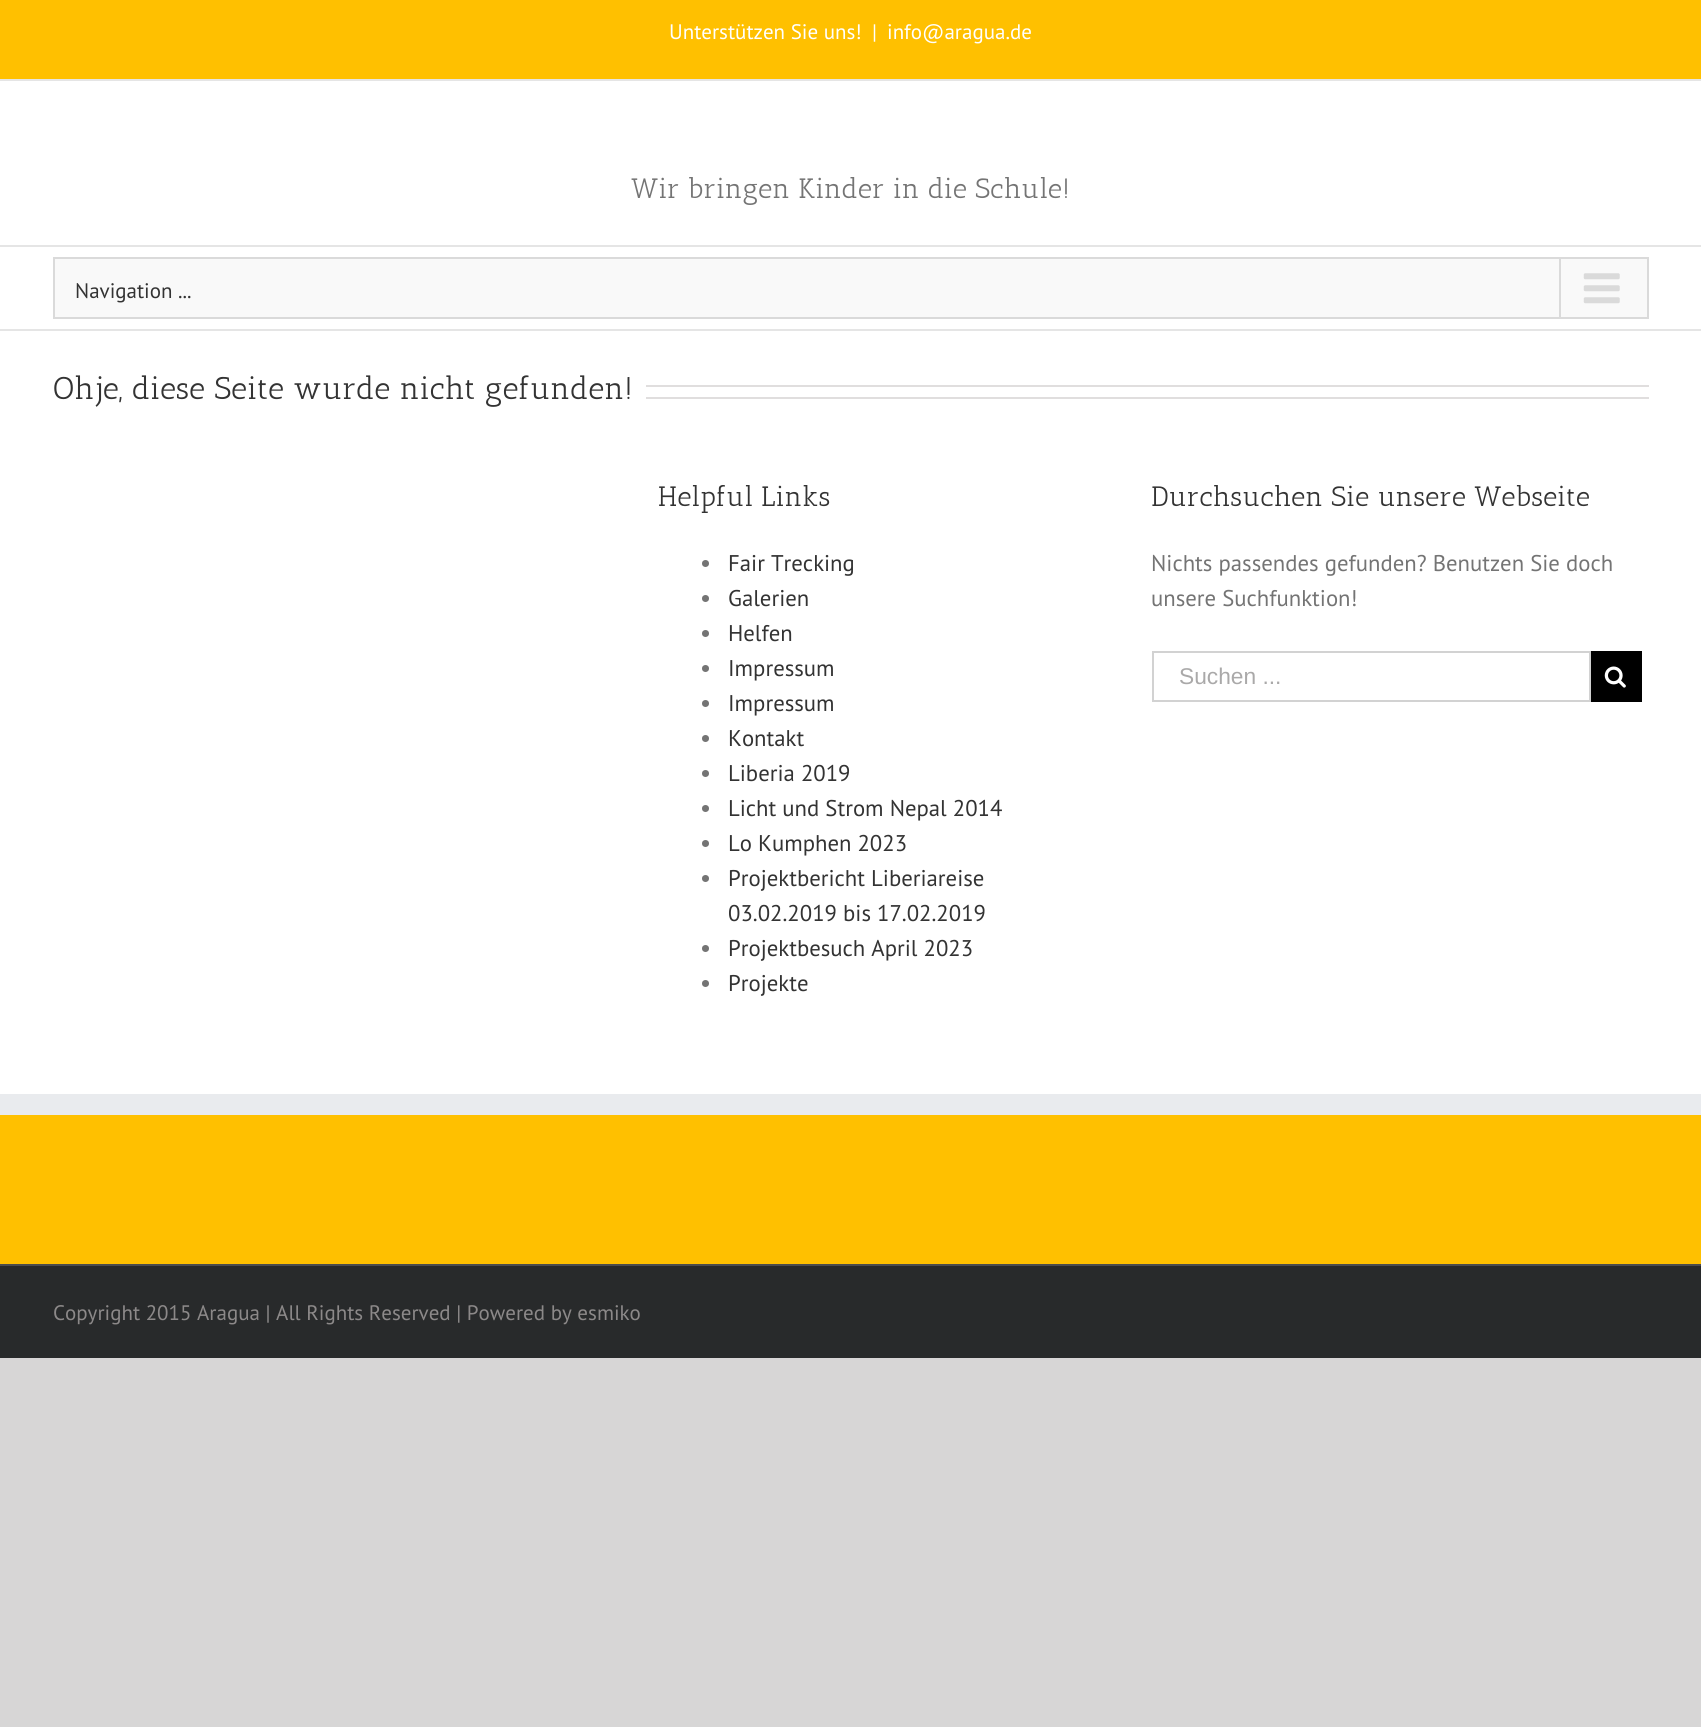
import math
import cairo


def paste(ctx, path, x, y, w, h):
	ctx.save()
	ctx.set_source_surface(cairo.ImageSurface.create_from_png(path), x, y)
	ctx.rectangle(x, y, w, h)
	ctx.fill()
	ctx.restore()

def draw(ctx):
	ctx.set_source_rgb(0.843, 0.839, 0.839)
	ctx.paint()
	ctx.set_source_rgb(1, 0.753, 0)
	ctx.rectangle(0, 0, 1701, 79)
	ctx.fill()
	ctx.set_source_rgb(0.898, 0.898, 0.898)
	ctx.rectangle(0, 79, 1701, 2)
	ctx.fill()
	ctx.select_font_face('PT Sans')
	ctx.set_font_size(21)
	ctx.set_source_rgb(1, 1, 1)
	for x, y, s in [
		(669, 39, 'Unterstützen Sie uns!'),
		(872, 39, '|'),
		(887, 39, 'info@aragua.de'),
	]:
		ctx.move_to(x, y)
		ctx.show_text(s)
	ctx.rectangle(0, 81, 1701, 164)
	ctx.fill()
	ctx.set_source_rgb(0.898, 0.898, 0.898)
	ctx.rectangle(0, 245, 1701, 2)
	ctx.fill()
	ctx.select_font_face('Antic Slab')
	ctx.set_font_size(28)
	ctx.set_source_rgb(0.455, 0.455, 0.455)
	ctx.move_to(631, 198)
	ctx.show_text('Wir bringen Kinder in die Schule!')
	ctx.set_source_rgb(1, 1, 1)
	ctx.rectangle(0, 247, 1701, 82)
	ctx.fill()
	ctx.set_source_rgb(0.898, 0.898, 0.898)
	ctx.rectangle(0, 329, 1701, 2)
	ctx.fill()
	ctx.set_source_rgb(0.976, 0.976, 0.976)
	ctx.rectangle(54, 258, 1594, 60)
	ctx.fill_preserve()
	ctx.set_source_rgb(0.855, 0.855, 0.855)
	ctx.stroke()
	ctx.select_font_face('PT Sans')
	ctx.set_font_size(21)
	ctx.set_source_rgb(0.2, 0.2, 0.2)
	ctx.move_to(75, 298)
	ctx.show_text('Navigation ...')
	ctx.set_source_rgb(0.855, 0.855, 0.855)
	ctx.rectangle(1559, 259, 2, 58)
	ctx.fill()
	paste(ctx, 'media/1.png', 1583, 273, 37, 31)
	ctx.set_source_rgb(1, 1, 1)
	ctx.rectangle(0, 331, 1701, 763)
	ctx.fill()
	ctx.select_font_face('Antic Slab')
	ctx.set_font_size(31.5)
	ctx.set_source_rgb(0.2, 0.2, 0.2)
	ctx.move_to(53, 399)
	ctx.show_text('Ohje, diese Seite wurde nicht gefunden!')
	ctx.set_source_rgb(0.878, 0.871, 0.871)
	ctx.rectangle(646, 385, 1003, 2)
	ctx.fill()
	ctx.rectangle(646, 397, 1003, 2)
	ctx.fill()
	ctx.set_font_size(28)
	ctx.set_source_rgb(0.2, 0.2, 0.2)
	ctx.move_to(658, 506)
	ctx.show_text('Helpful Links')
	ctx.set_source_rgb(0.455, 0.455, 0.455)
	ctx.new_path()
	ctx.arc(705.5, 563.5, 3.5, 0, 2 * math.pi)
	ctx.fill()
	ctx.select_font_face('PT Sans')
	ctx.set_font_size(22.75)
	ctx.set_source_rgb(0.2, 0.2, 0.2)
	ctx.move_to(728, 571)
	ctx.show_text('Fair Trecking')
	ctx.set_source_rgb(0.455, 0.455, 0.455)
	ctx.new_path()
	ctx.arc(705.5, 598.5, 3.5, 0, 2 * math.pi)
	ctx.fill()
	ctx.set_source_rgb(0.2, 0.2, 0.2)
	ctx.move_to(728, 606)
	ctx.show_text('Galerien')
	ctx.set_source_rgb(0.455, 0.455, 0.455)
	ctx.new_path()
	ctx.arc(705.5, 633.5, 3.5, 0, 2 * math.pi)
	ctx.fill()
	ctx.set_source_rgb(0.2, 0.2, 0.2)
	ctx.move_to(728, 641)
	ctx.show_text('Helfen')
	ctx.set_source_rgb(0.455, 0.455, 0.455)
	ctx.new_path()
	ctx.arc(705.5, 668.5, 3.5, 0, 2 * math.pi)
	ctx.fill()
	ctx.set_source_rgb(0.2, 0.2, 0.2)
	ctx.move_to(728, 676)
	ctx.show_text('Impressum')
	ctx.set_source_rgb(0.455, 0.455, 0.455)
	ctx.new_path()
	ctx.arc(705.5, 703.5, 3.5, 0, 2 * math.pi)
	ctx.fill()
	ctx.set_source_rgb(0.2, 0.2, 0.2)
	ctx.move_to(728, 711)
	ctx.show_text('Impressum')
	ctx.set_source_rgb(0.455, 0.455, 0.455)
	ctx.new_path()
	ctx.arc(705.5, 738.5, 3.5, 0, 2 * math.pi)
	ctx.fill()
	ctx.set_source_rgb(0.2, 0.2, 0.2)
	ctx.move_to(728, 746)
	ctx.show_text('Kontakt')
	ctx.set_source_rgb(0.455, 0.455, 0.455)
	ctx.new_path()
	ctx.arc(705.5, 773.5, 3.5, 0, 2 * math.pi)
	ctx.fill()
	ctx.set_source_rgb(0.2, 0.2, 0.2)
	ctx.move_to(728, 781)
	ctx.show_text('Liberia 2019')
	ctx.set_source_rgb(0.455, 0.455, 0.455)
	ctx.new_path()
	ctx.arc(705.5, 808.5, 3.5, 0, 2 * math.pi)
	ctx.fill()
	ctx.set_source_rgb(0.2, 0.2, 0.2)
	ctx.move_to(728, 816)
	ctx.show_text('Licht und Strom Nepal 2014')
	ctx.set_source_rgb(0.455, 0.455, 0.455)
	ctx.new_path()
	ctx.arc(705.5, 843.5, 3.5, 0, 2 * math.pi)
	ctx.fill()
	ctx.set_source_rgb(0.2, 0.2, 0.2)
	ctx.move_to(728, 851)
	ctx.show_text('Lo Kumphen 2023')
	ctx.set_source_rgb(0.455, 0.455, 0.455)
	ctx.new_path()
	ctx.arc(705.5, 878.5, 3.5, 0, 2 * math.pi)
	ctx.fill()
	ctx.set_source_rgb(0.2, 0.2, 0.2)
	ctx.move_to(728, 886)
	ctx.show_text('Projektbericht Liberiareise')
	ctx.move_to(728, 921)
	ctx.show_text('03.02.2019 bis 17.02.2019')
	ctx.set_source_rgb(0.455, 0.455, 0.455)
	ctx.new_path()
	ctx.arc(705.5, 948.5, 3.5, 0, 2 * math.pi)
	ctx.fill()
	ctx.set_source_rgb(0.2, 0.2, 0.2)
	ctx.move_to(728, 956)
	ctx.show_text('Projektbesuch April 2023')
	ctx.set_source_rgb(0.455, 0.455, 0.455)
	ctx.new_path()
	ctx.arc(705.5, 983.5, 3.5, 0, 2 * math.pi)
	ctx.fill()
	ctx.set_source_rgb(0.2, 0.2, 0.2)
	ctx.move_to(728, 991)
	ctx.show_text('Projekte')
	ctx.select_font_face('Antic Slab')
	ctx.set_font_size(28)
	ctx.move_to(1151, 506)
	ctx.show_text('Durchsuchen Sie unsere Webseite')
	ctx.select_font_face('PT Sans')
	ctx.set_font_size(22.75)
	ctx.set_source_rgb(0.455, 0.455, 0.455)
	ctx.move_to(1151, 571)
	ctx.show_text('Nichts passendes gefunden? Benutzen Sie doch')
	ctx.move_to(1151, 606)
	ctx.show_text('unsere Suchfunktion!')
	ctx.rectangle(1153, 652, 437, 49)
	ctx.set_source_rgb(0.824, 0.824, 0.824)
	ctx.stroke()
	ctx.select_font_face('Liberation Sans')
	ctx.set_source_rgb(0.667, 0.663, 0.663)
	ctx.move_to(1179, 684)
	ctx.show_text('Suchen ...')
	ctx.set_source_rgb(0, 0, 0)
	ctx.rectangle(1591, 651, 51, 51)
	ctx.fill()
	paste(ctx, 'media/2.png', 1604, 666, 22, 22)
	ctx.set_source_rgb(1, 0.753, 0)
	ctx.rectangle(0, 1115, 1701, 149)
	ctx.fill()
	ctx.set_source_rgb(0.914, 0.918, 0.933)
	ctx.rectangle(0, 1094, 1701, 21)
	ctx.fill()
	ctx.set_source_rgb(0.157, 0.165, 0.169)
	ctx.rectangle(0, 1266, 1701, 92)
	ctx.fill()
	ctx.set_source_rgb(0.294, 0.298, 0.302)
	ctx.rectangle(0, 1264, 1701, 2)
	ctx.fill()
	ctx.select_font_face('PT Sans')
	ctx.set_font_size(21)
	ctx.set_source_rgb(0.549, 0.537, 0.537)
	ctx.move_to(53, 1320)
	ctx.show_text('Copyright 2015 Aragua | All Rights Reserved | Powered by esmiko')


surface = cairo.ImageSurface(cairo.FORMAT_RGB24, 1701, 1727)
ctx = cairo.Context(surface)
options = cairo.FontOptions()
options.set_hint_metrics(cairo.HINT_METRICS_OFF)
options.set_hint_style(cairo.HINT_STYLE_NONE)
ctx.set_font_options(options)
ctx.set_miter_limit(4)
draw(ctx)
surface.write_to_png('image.png')
